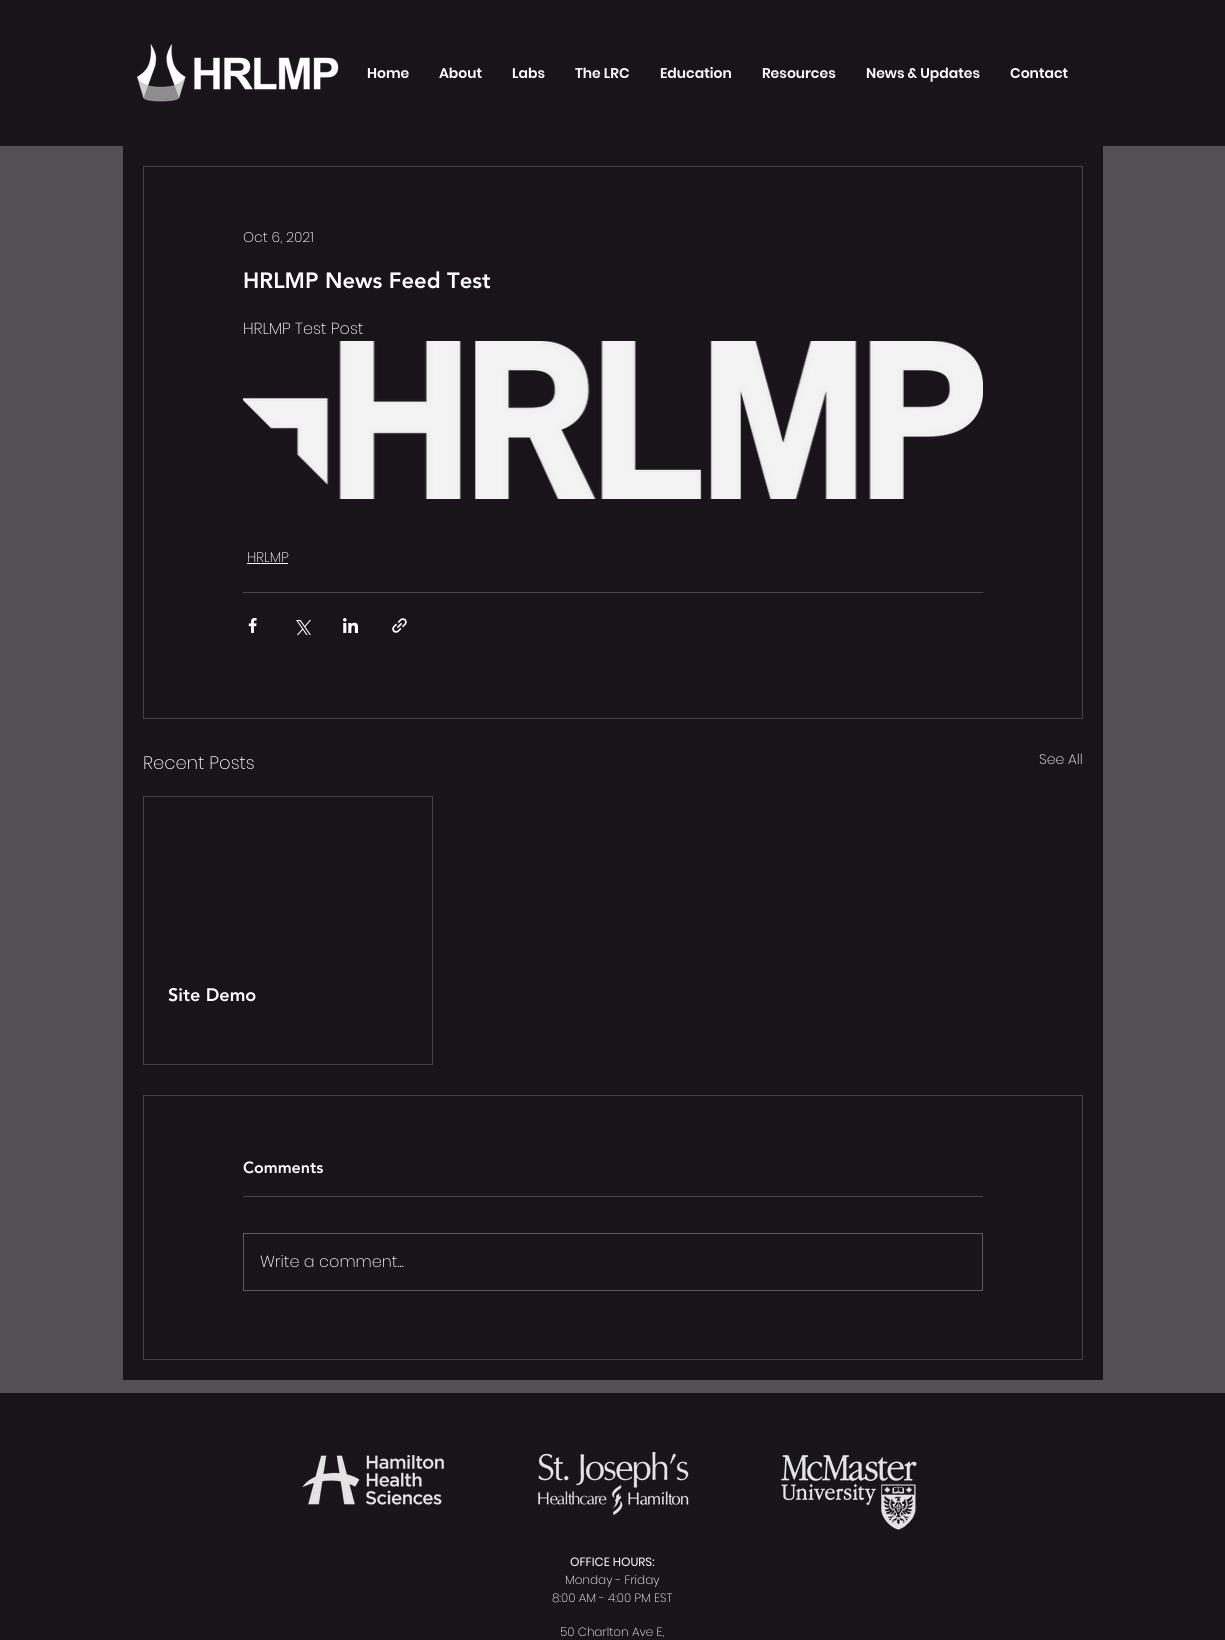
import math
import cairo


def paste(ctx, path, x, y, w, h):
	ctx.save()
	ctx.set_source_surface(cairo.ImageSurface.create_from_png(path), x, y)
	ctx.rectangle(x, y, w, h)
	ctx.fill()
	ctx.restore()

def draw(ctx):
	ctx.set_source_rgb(0.322, 0.314, 0.325)
	ctx.paint()
	ctx.set_source_rgb(0.094, 0.082, 0.102)
	ctx.rectangle(0, 0, 1225, 146)
	ctx.fill()
	paste(ctx, 'media/1.png', 137, 44, 202, 58)
	ctx.select_font_face('Poppins SemiBold')
	ctx.set_font_size(14)
	ctx.set_source_rgb(1, 1, 1)
	for x, y, s in [
		(367, 78, 'Home'),
		(439, 78, 'About'),
		(512, 78, 'Labs'),
		(575, 78, 'The LRC'),
		(660, 78, 'Education'),
		(762, 78, 'Resources'),
		(866, 78, 'News & Updates'),
		(1010, 78, 'Contact'),
	]:
		ctx.move_to(x, y)
		ctx.show_text(s)
	ctx.set_source_rgb(0.094, 0.082, 0.102)
	ctx.rectangle(123, 146, 980, 1234)
	ctx.fill()
	ctx.rectangle(143.5, 166.5, 939, 552)
	ctx.set_source_rgb(0.267, 0.255, 0.271)
	ctx.set_line_width(1)
	ctx.stroke()
	ctx.select_font_face('Poppins ExtraLight')
	ctx.set_source_rgb(1, 1, 1)
	ctx.move_to(243, 242)
	ctx.show_text('Oct 6, 2021')
	ctx.select_font_face('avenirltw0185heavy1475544 Black')
	ctx.set_font_size(22)
	ctx.move_to(243, 288)
	ctx.show_text('HRLMP News Feed Test')
	ctx.select_font_face('Poppins ExtraLight')
	ctx.set_font_size(16)
	ctx.move_to(243, 334)
	ctx.show_text('HRLMP Test Post')
	paste(ctx, 'media/2.png', 243, 341, 740, 158)
	ctx.set_font_size(14)
	ctx.move_to(247, 562)
	ctx.show_text('HRLMP')
	ctx.rectangle(247, 563, 41, 1)
	ctx.fill()
	ctx.set_source_rgb(0.275, 0.267, 0.282)
	ctx.rectangle(243, 592, 740, 1)
	ctx.fill()
	paste(ctx, 'media/3.png', 248, 618, 9, 15)
	paste(ctx, 'media/4.png', 296, 620, 15, 15)
	paste(ctx, 'media/5.png', 343, 618, 15, 15)
	paste(ctx, 'media/6.png', 392, 618, 15, 15)
	ctx.set_font_size(18)
	ctx.set_source_rgb(1, 1, 1)
	ctx.move_to(143, 769)
	ctx.show_text('Recent Posts')
	ctx.set_font_size(14)
	ctx.move_to(1039, 764)
	ctx.show_text('See All')
	ctx.rectangle(143.5, 796.5, 289, 268)
	ctx.set_source_rgb(0.267, 0.255, 0.271)
	ctx.stroke()
	ctx.select_font_face('avenirltw0185heavy1475544 Black')
	ctx.set_font_size(18)
	ctx.set_source_rgb(1, 1, 1)
	ctx.move_to(168, 1001)
	ctx.show_text('Site Demo')
	ctx.rectangle(143.5, 1095.5, 939, 264)
	ctx.set_source_rgb(0.267, 0.255, 0.271)
	ctx.stroke()
	ctx.set_font_size(16)
	ctx.set_source_rgb(1, 1, 1)
	ctx.move_to(243, 1173)
	ctx.show_text('Comments')
	ctx.set_source_rgb(0.275, 0.267, 0.282)
	ctx.rectangle(243, 1196, 740, 1)
	ctx.fill()
	ctx.rectangle(243.5, 1233.5, 739, 57)
	ctx.set_source_rgb(0.365, 0.357, 0.373)
	ctx.stroke()
	ctx.select_font_face('Poppins ExtraLight')
	ctx.set_source_rgb(1, 1, 1)
	ctx.move_to(260, 1267)
	ctx.show_text('Write a comment...')
	ctx.set_source_rgb(0.094, 0.082, 0.102)
	ctx.rectangle(0, 1393, 1225, 247)
	ctx.fill()
	paste(ctx, 'media/7.png', 302, 1454, 142, 51)
	paste(ctx, 'media/8.png', 538, 1452, 151, 64)
	paste(ctx, 'media/9.png', 781, 1455, 136, 75)
	ctx.select_font_face('Poppins')
	ctx.set_font_size(12)
	ctx.set_source_rgb(1, 1, 1)
	ctx.move_to(570, 1566)
	ctx.show_text('OFFICE HOURS:')
	ctx.select_font_face('Poppins ExtraLight')
	for x, y, s in [
		(565, 1584, 'Monday - Friday'),
		(552, 1602, '8:00 AM - 4:00 PM EST'),
		(560, 1636, '50 Charlton Ave E,'),
	]:
		ctx.move_to(x, y)
		ctx.show_text(s)


surface = cairo.ImageSurface(cairo.FORMAT_RGB24, 1225, 1640)
ctx = cairo.Context(surface)
options = cairo.FontOptions()
options.set_hint_metrics(cairo.HINT_METRICS_OFF)
options.set_hint_style(cairo.HINT_STYLE_NONE)
ctx.set_font_options(options)
ctx.set_miter_limit(4)
draw(ctx)
surface.write_to_png('image.png')
